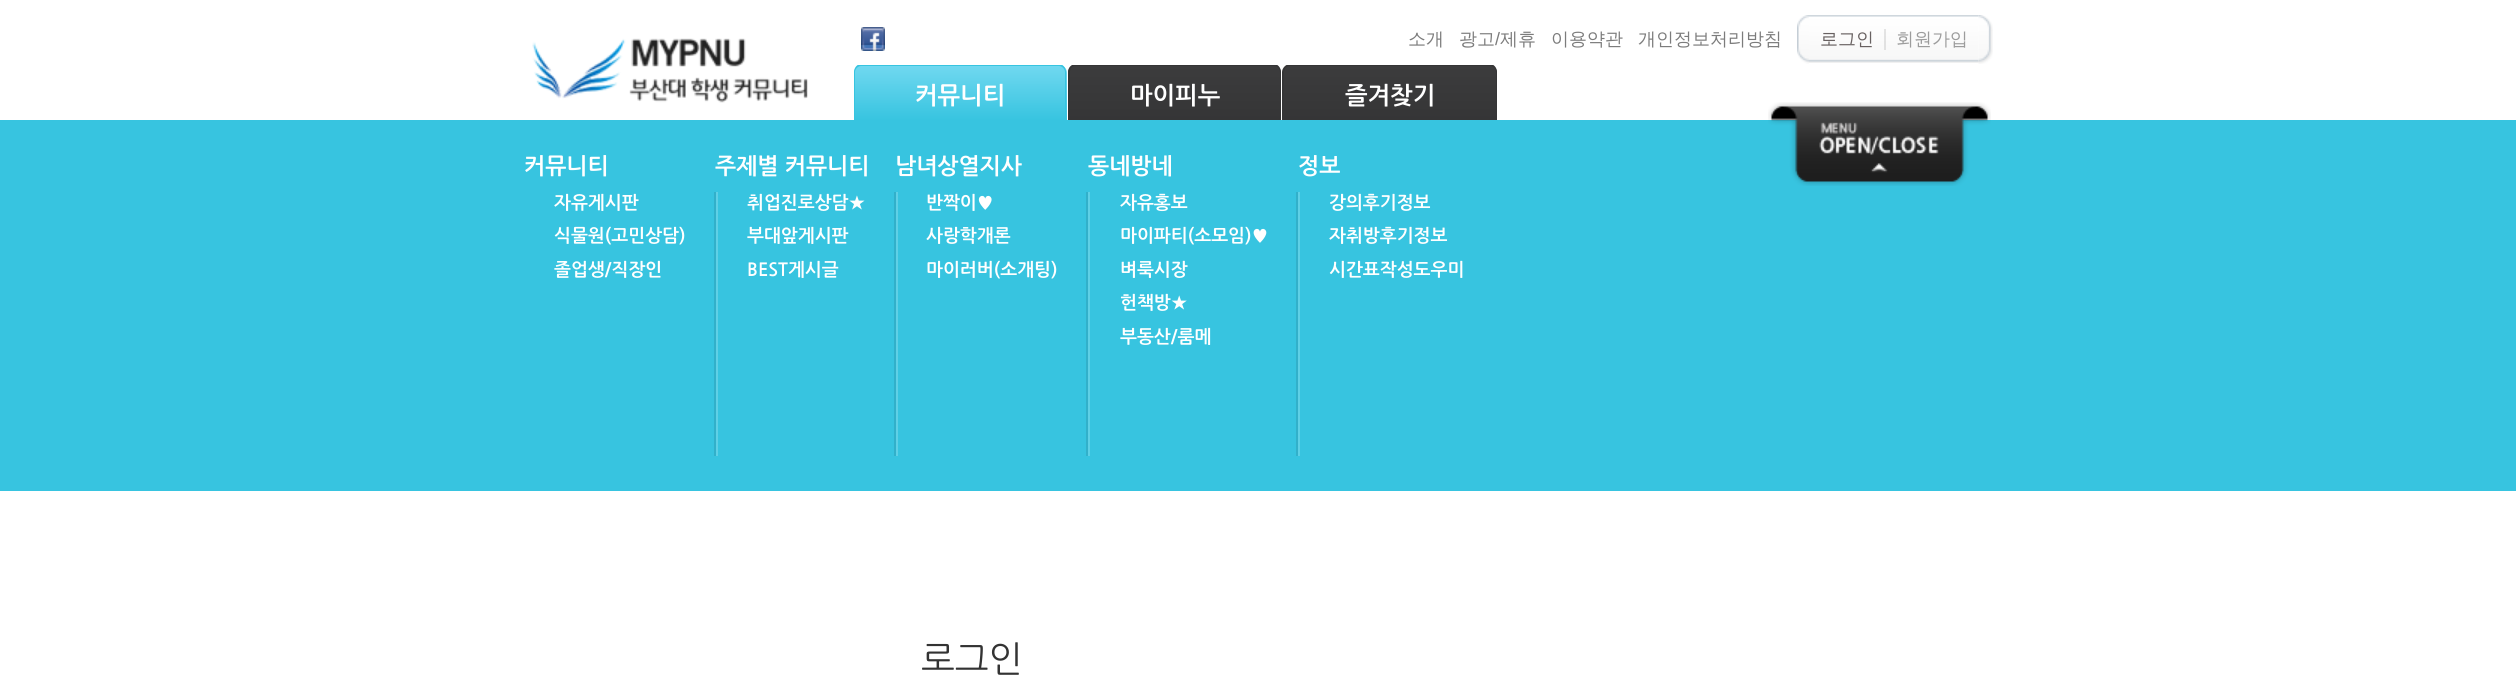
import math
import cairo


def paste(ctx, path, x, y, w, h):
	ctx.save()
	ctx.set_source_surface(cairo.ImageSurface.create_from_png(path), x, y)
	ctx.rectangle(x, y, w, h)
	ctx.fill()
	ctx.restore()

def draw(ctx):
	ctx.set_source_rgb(1, 1, 1)
	ctx.paint()
	ctx.save()
	ctx.new_path()
	ctx.move_to(862, 65)
	ctx.line_to(1059, 65)
	ctx.curve_to(1063.5, 65, 1067, 68.5, 1067, 73)
	ctx.line_to(1067, 120)
	ctx.line_to(854, 120)
	ctx.line_to(854, 73)
	ctx.curve_to(854, 68.5, 857.5, 65, 862, 65)
	ctx.close_path()
	ctx.clip()
	gradient = cairo.LinearGradient(960, 66, 960, 120)
	gradient.add_color_stop_rgba(0, 0.439, 0.847, 0.941, 1)
	gradient.add_color_stop_rgba(1, 0.216, 0.769, 0.878, 1)
	ctx.set_source(gradient)
	ctx.rectangle(854, 66, 213, 54)
	ctx.fill()
	ctx.restore()
	ctx.set_source_rgb(0.216, 0.769, 0.878)
	ctx.set_fill_rule(cairo.FILL_RULE_EVEN_ODD)
	ctx.new_path()
	ctx.move_to(861, 64)
	ctx.line_to(1059, 64)
	ctx.curve_to(1063, 64, 1066, 68, 1066, 72)
	ctx.line_to(1066, 120)
	ctx.line_to(854, 120)
	ctx.line_to(854, 72)
	ctx.curve_to(854, 68, 857, 64, 861, 64)
	ctx.close_path()
	ctx.move_to(861, 66)
	ctx.line_to(1059, 66)
	ctx.curve_to(1062, 66, 1065, 69, 1065, 72)
	ctx.line_to(1065, 120)
	ctx.line_to(855, 120)
	ctx.line_to(855, 72)
	ctx.curve_to(855, 69, 858, 66, 861, 66)
	ctx.close_path()
	ctx.fill()
	ctx.save()
	ctx.set_fill_rule(cairo.FILL_RULE_WINDING)
	ctx.new_path()
	ctx.move_to(1076, 65)
	ctx.line_to(1273, 65)
	ctx.curve_to(1277.5, 65, 1281, 68.5, 1281, 73)
	ctx.line_to(1281, 120)
	ctx.line_to(1068, 120)
	ctx.line_to(1068, 73)
	ctx.curve_to(1068, 68.5, 1071.5, 65, 1076, 65)
	ctx.close_path()
	ctx.clip()
	gradient = cairo.LinearGradient(1175, 66, 1175, 120)
	gradient.add_color_stop_rgba(0, 0.235, 0.235, 0.239, 1)
	gradient.add_color_stop_rgba(1, 0.208, 0.208, 0.212, 1)
	ctx.set_source(gradient)
	ctx.rectangle(1068, 66, 213, 54)
	ctx.fill()
	ctx.restore()
	ctx.set_source_rgb(0.208, 0.208, 0.212)
	ctx.new_path()
	ctx.move_to(1076, 64)
	ctx.line_to(1274, 64)
	ctx.curve_to(1278, 64, 1281, 68, 1281, 72)
	ctx.line_to(1281, 120)
	ctx.line_to(1068, 120)
	ctx.line_to(1068, 72)
	ctx.curve_to(1068, 68, 1071, 64, 1076, 64)
	ctx.close_path()
	ctx.move_to(1076, 66)
	ctx.line_to(1274, 66)
	ctx.curve_to(1277, 66, 1280, 69, 1280, 72)
	ctx.line_to(1280, 120)
	ctx.line_to(1070, 120)
	ctx.line_to(1070, 72)
	ctx.curve_to(1070, 69, 1072, 66, 1076, 66)
	ctx.close_path()
	ctx.fill()
	ctx.save()
	ctx.set_fill_rule(cairo.FILL_RULE_WINDING)
	ctx.new_path()
	ctx.move_to(1291, 65)
	ctx.line_to(1489, 65)
	ctx.curve_to(1493.5, 65, 1497, 68.5, 1497, 73)
	ctx.line_to(1497, 120)
	ctx.line_to(1283, 120)
	ctx.line_to(1283, 73)
	ctx.curve_to(1283, 68.5, 1286.5, 65, 1291, 65)
	ctx.close_path()
	ctx.clip()
	gradient = cairo.LinearGradient(1390, 66, 1390, 120)
	gradient.add_color_stop_rgba(0, 0.235, 0.235, 0.239, 1)
	gradient.add_color_stop_rgba(1, 0.208, 0.208, 0.212, 1)
	ctx.set_source(gradient)
	ctx.rectangle(1284, 66, 213, 54)
	ctx.fill()
	ctx.restore()
	ctx.new_path()
	ctx.move_to(1290, 64)
	ctx.line_to(1490, 64)
	ctx.curve_to(1494, 64, 1497, 68, 1497, 72)
	ctx.line_to(1497, 120)
	ctx.line_to(1282, 120)
	ctx.line_to(1282, 72)
	ctx.curve_to(1282, 68, 1286, 64, 1290, 64)
	ctx.close_path()
	ctx.move_to(1290, 66)
	ctx.line_to(1490, 66)
	ctx.curve_to(1493, 66, 1496, 69, 1496, 72)
	ctx.line_to(1496, 120)
	ctx.line_to(1284, 120)
	ctx.line_to(1284, 72)
	ctx.curve_to(1284, 69, 1287, 66, 1290, 66)
	ctx.close_path()
	ctx.fill()
	ctx.set_source_rgb(1, 1, 1)
	ctx.rectangle(857, 64, 637, 1)
	ctx.fill()
	paste(ctx, 'media/1.png', 532, 38, 276, 65)
	paste(ctx, 'media/2.png', 861, 27, 24, 24)
	ctx.select_font_face('WenQuanYi Zen Hei Medium')
	ctx.set_font_size(18)
	ctx.set_source_rgb(0.486, 0.486, 0.486)
	ctx.move_to(1408, 45)
	ctx.show_text('소개')
	ctx.move_to(1459, 45)
	ctx.show_text('광고')
	ctx.select_font_face('Liberation Sans')
	ctx.move_to(1495, 45)
	ctx.show_text('/')
	ctx.select_font_face('WenQuanYi Zen Hei Medium')
	for x, y, s in [
		(1500, 45, '제휴'),
		(1551, 45, '이용약관'),
		(1638, 45, '개인정보처리방침'),
	]:
		ctx.move_to(x, y)
		ctx.show_text(s)
	paste(ctx, 'media/3.png', 1797, 15, 12, 49)
	paste(ctx, 'media/4.png', 1809, 15, 170, 48)
	ctx.set_source_rgba(0, 0, 0, 0.1)
	ctx.rectangle(1884, 29, 2, 21)
	ctx.fill()
	ctx.set_source_rgb(0.408, 0.38, 0.38)
	ctx.move_to(1820, 45)
	ctx.show_text('로그인')
	ctx.set_source_rgb(0.612, 0.612, 0.612)
	ctx.move_to(1896, 45)
	ctx.show_text('회원가입')
	paste(ctx, 'media/5.png', 1978, 15, 15, 49)
	ctx.select_font_face('NanumGothic', cairo.FONT_SLANT_NORMAL, cairo.FONT_WEIGHT_BOLD)
	ctx.set_font_size(24)
	ctx.set_source_rgb(1, 1, 1)
	for x, y, s in [
		(915, 104, '커뮤니티'),
		(1130, 104, '마이피누'),
		(1345, 104, '즐겨찾기'),
	]:
		ctx.move_to(x, y)
		ctx.show_text(s)
	ctx.set_source_rgb(0.216, 0.769, 0.878)
	ctx.rectangle(0, 120, 2516, 371)
	ctx.fill()
	paste(ctx, 'media/6.png', 1768, 102, 223, 84)
	ctx.set_font_size(22.5)
	ctx.set_source_rgb(1, 1, 1)
	ctx.move_to(524, 174)
	ctx.show_text('커뮤니티')
	ctx.set_font_size(18)
	for x, y, s in [
		(554, 209, '자유게시판'),
		(554, 242, '식물원(고민상담)'),
		(554, 276, '졸업생/직장인'),
	]:
		ctx.move_to(x, y)
		ctx.show_text(s)
	ctx.set_font_size(22.5)
	ctx.move_to(715, 174)
	ctx.show_text('주제별 커뮤니티')
	ctx.set_source_rgb(0.196, 0.69, 0.792)
	ctx.rectangle(714, 192, 2, 264)
	ctx.fill()
	ctx.set_source_rgb(0.373, 0.816, 0.902)
	ctx.rectangle(716, 192, 2, 264)
	ctx.fill()
	ctx.set_font_size(18)
	ctx.set_source_rgb(1, 1, 1)
	for x, y, s in [
		(747, 209, '취업진로상담★'),
		(747, 242, '부대앞게시판'),
		(747, 276, 'BEST게시글'),
	]:
		ctx.move_to(x, y)
		ctx.show_text(s)
	ctx.set_font_size(22.5)
	ctx.move_to(895, 174)
	ctx.show_text('남녀상열지사')
	ctx.set_source_rgb(0.196, 0.69, 0.792)
	ctx.rectangle(894, 192, 2, 264)
	ctx.fill()
	ctx.set_source_rgb(0.373, 0.816, 0.902)
	ctx.rectangle(896, 192, 2, 264)
	ctx.fill()
	ctx.set_font_size(18)
	ctx.set_source_rgb(1, 1, 1)
	for x, y, s in [
		(926, 209, '반짝이♥'),
		(926, 242, '사랑학개론'),
		(926, 276, '마이러버(소개팅)'),
	]:
		ctx.move_to(x, y)
		ctx.show_text(s)
	ctx.set_font_size(22.5)
	ctx.move_to(1088, 174)
	ctx.show_text('동네방네')
	ctx.set_source_rgb(0.196, 0.69, 0.792)
	ctx.rectangle(1086, 192, 2, 264)
	ctx.fill()
	ctx.set_source_rgb(0.373, 0.816, 0.902)
	ctx.rectangle(1088, 192, 2, 264)
	ctx.fill()
	ctx.set_font_size(18)
	ctx.set_source_rgb(1, 1, 1)
	for x, y, s in [
		(1120, 209, '자유홍보'),
		(1120, 242, '마이파티(소모임)♥'),
		(1120, 276, '벼룩시장'),
		(1120, 309, '헌책방★'),
		(1120, 343, '부동산/룸메'),
	]:
		ctx.move_to(x, y)
		ctx.show_text(s)
	ctx.set_font_size(22.5)
	ctx.move_to(1298, 174)
	ctx.show_text('정보')
	ctx.set_source_rgb(0.196, 0.69, 0.792)
	ctx.rectangle(1296, 192, 2, 264)
	ctx.fill()
	ctx.set_source_rgb(0.373, 0.816, 0.902)
	ctx.rectangle(1298, 192, 2, 264)
	ctx.fill()
	ctx.set_font_size(18)
	ctx.set_source_rgb(1, 1, 1)
	for x, y, s in [
		(1329, 209, '강의후기정보'),
		(1329, 242, '자취방후기정보'),
		(1329, 276, '시간표작성도우미'),
	]:
		ctx.move_to(x, y)
		ctx.show_text(s)
	ctx.select_font_face('NanumGothic')
	ctx.set_font_size(36)
	ctx.set_source_rgb(0.2, 0.2, 0.2)
	ctx.move_to(921, 672)
	ctx.show_text('로그인')


surface = cairo.ImageSurface(cairo.FORMAT_RGB24, 2516, 689)
ctx = cairo.Context(surface)
options = cairo.FontOptions()
options.set_hint_metrics(cairo.HINT_METRICS_OFF)
options.set_hint_style(cairo.HINT_STYLE_NONE)
ctx.set_font_options(options)
ctx.set_miter_limit(4)
draw(ctx)
surface.write_to_png('image.png')
